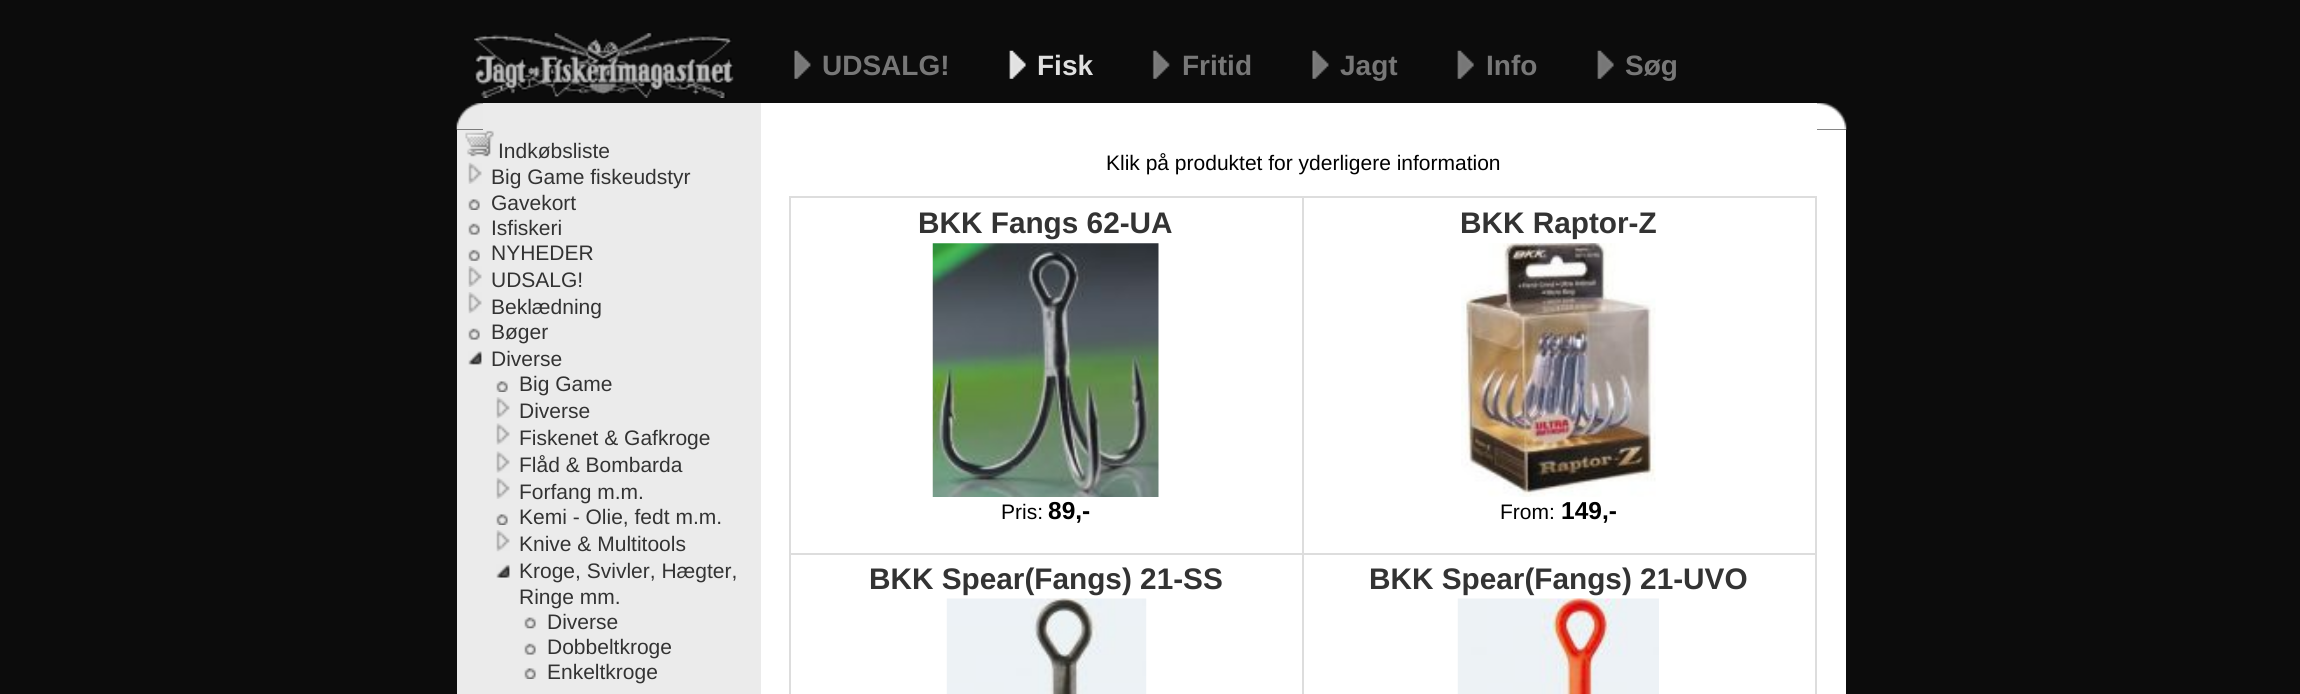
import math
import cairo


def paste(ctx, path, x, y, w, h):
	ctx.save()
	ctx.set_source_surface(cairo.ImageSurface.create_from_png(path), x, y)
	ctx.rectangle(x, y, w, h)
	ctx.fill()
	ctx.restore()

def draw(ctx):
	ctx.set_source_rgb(0.047, 0.047, 0.047)
	ctx.paint()
	paste(ctx, 'media/1.png', 474, 33, 260, 65)
	paste(ctx, 'media/2.png', 794, 50, 17, 29)
	ctx.select_font_face('Liberation Sans', cairo.FONT_SLANT_NORMAL, cairo.FONT_WEIGHT_BOLD)
	ctx.set_font_size(28)
	ctx.set_source_rgb(0.467, 0.467, 0.467)
	ctx.move_to(822, 75)
	ctx.show_text('UDSALG!')
	paste(ctx, 'media/3.png', 1009, 50, 17, 29)
	ctx.set_source_rgb(0.878, 0.878, 0.878)
	ctx.move_to(1037, 75)
	ctx.show_text('Fisk')
	paste(ctx, 'media/4.png', 1152, 50, 18, 29)
	ctx.set_source_rgb(0.467, 0.467, 0.467)
	ctx.move_to(1182, 75)
	ctx.show_text('Fritid')
	paste(ctx, 'media/2.png', 1312, 50, 17, 29)
	ctx.move_to(1340, 75)
	ctx.show_text('Jagt')
	paste(ctx, 'media/5.png', 1457, 50, 17, 29)
	ctx.move_to(1486, 75)
	ctx.show_text('Info')
	paste(ctx, 'media/6.png', 1597, 50, 17, 29)
	ctx.move_to(1625, 75)
	ctx.show_text('Søg')
	ctx.set_source_rgb(0.918, 0.918, 0.918)
	ctx.rectangle(483, 103, 278, 27)
	ctx.fill()
	paste(ctx, 'media/7.png', 456, 103, 27, 27)
	ctx.set_source_rgb(1, 1, 1)
	ctx.rectangle(761, 103, 1056, 27)
	ctx.fill()
	paste(ctx, 'media/8.png', 1817, 103, 30, 27)
	ctx.set_source_rgb(0.918, 0.918, 0.918)
	ctx.rectangle(457, 130, 304, 564)
	ctx.fill()
	paste(ctx, 'media/9.png', 465, 130, 29, 27)
	ctx.select_font_face('Liberation Sans')
	ctx.set_font_size(21)
	ctx.set_source_rgb(0.2, 0.2, 0.2)
	ctx.move_to(498, 158)
	ctx.show_text('Indkøbsliste')
	paste(ctx, 'media/10.png', 468, 162, 14, 22)
	ctx.move_to(491, 184)
	ctx.show_text('Big Game fiskeudstyr')
	paste(ctx, 'media/11.png', 468, 199, 12, 11)
	ctx.move_to(491, 210)
	ctx.show_text('Gavekort')
	paste(ctx, 'media/12.png', 468, 223, 12, 12)
	ctx.move_to(491, 235)
	ctx.show_text('Isfiskeri')
	paste(ctx, 'media/13.png', 468, 249, 12, 12)
	ctx.move_to(491, 260)
	ctx.show_text('NYHEDER')
	paste(ctx, 'media/14.png', 468, 266, 14, 21)
	ctx.move_to(491, 287)
	ctx.show_text('UDSALG!')
	paste(ctx, 'media/15.png', 468, 292, 14, 22)
	ctx.move_to(491, 314)
	ctx.show_text('Beklædning')
	paste(ctx, 'media/16.png', 468, 328, 12, 12)
	ctx.move_to(491, 339)
	ctx.show_text('Bøger')
	paste(ctx, 'media/17.png', 468, 351, 14, 14)
	ctx.move_to(491, 366)
	ctx.show_text('Diverse')
	paste(ctx, 'media/11.png', 496, 381, 12, 11)
	ctx.move_to(519, 391)
	ctx.show_text('Big Game')
	paste(ctx, 'media/15.png', 496, 397, 14, 22)
	ctx.move_to(519, 418)
	ctx.show_text('Diverse')
	paste(ctx, 'media/18.png', 496, 423, 14, 22)
	ctx.move_to(519, 445)
	ctx.show_text('Fiskenet & Gafkroge')
	paste(ctx, 'media/18.png', 496, 451, 14, 22)
	ctx.move_to(519, 472)
	ctx.show_text('Flåd & Bombarda')
	paste(ctx, 'media/10.png', 496, 477, 14, 22)
	ctx.move_to(519, 499)
	ctx.show_text('Forfang m.m.')
	paste(ctx, 'media/11.png', 496, 514, 12, 11)
	ctx.move_to(519, 524)
	ctx.show_text('Kemi - Olie, fedt m.m.')
	paste(ctx, 'media/15.png', 496, 530, 14, 22)
	ctx.move_to(519, 551)
	ctx.show_text('Knive & Multitools')
	paste(ctx, 'media/19.png', 496, 564, 14, 14)
	ctx.move_to(519, 578)
	ctx.show_text('Kroge, Svivler, Hægter,')
	ctx.move_to(519, 604)
	ctx.show_text('Ringe mm.')
	paste(ctx, 'media/20.png', 524, 617, 12, 12)
	ctx.move_to(547, 629)
	ctx.show_text('Diverse')
	paste(ctx, 'media/16.png', 524, 643, 12, 12)
	ctx.move_to(547, 654)
	ctx.show_text('Dobbeltkroge')
	paste(ctx, 'media/11.png', 524, 668, 12, 11)
	ctx.move_to(547, 679)
	ctx.show_text('Enkeltkroge')
	ctx.set_source_rgb(1, 1, 1)
	ctx.rectangle(761, 130, 1085, 564)
	ctx.fill()
	ctx.set_source_rgb(0, 0, 0)
	ctx.move_to(1106, 170)
	ctx.show_text('Klik på produktet for yderligere information')
	ctx.set_source_rgb(0.867, 0.867, 0.867)
	ctx.rectangle(1302, 196, 515, 2)
	ctx.rectangle(1302, 553, 515, 2)
	ctx.rectangle(1302, 553, 2, 141)
	ctx.rectangle(789, 553, 515, 2)
	ctx.rectangle(1302, 196, 2, 359)
	ctx.rectangle(789, 196, 515, 2)
	ctx.rectangle(789, 553, 2, 141)
	ctx.rectangle(789, 196, 2, 359)
	ctx.fill()
	ctx.select_font_face('Liberation Sans', cairo.FONT_SLANT_NORMAL, cairo.FONT_WEIGHT_BOLD)
	ctx.set_font_size(29.75)
	ctx.set_source_rgb(0.2, 0.2, 0.2)
	ctx.move_to(918, 233)
	ctx.show_text('BKK Fangs 62-UA')
	paste(ctx, 'media/21.png', 932, 243, 227, 254)
	ctx.select_font_face('Liberation Sans')
	ctx.set_font_size(21)
	ctx.set_source_rgb(0, 0, 0)
	ctx.move_to(1001, 519)
	ctx.show_text('Pris:')
	ctx.select_font_face('Liberation Sans', cairo.FONT_SLANT_NORMAL, cairo.FONT_WEIGHT_BOLD)
	ctx.set_font_size(24.5)
	ctx.move_to(1048, 519)
	ctx.show_text('89,-')
	ctx.set_source_rgb(0.867, 0.867, 0.867)
	ctx.rectangle(1815, 553, 2, 141)
	ctx.fill()
	ctx.rectangle(1815, 196, 2, 359)
	ctx.fill()
	ctx.set_font_size(29.75)
	ctx.set_source_rgb(0.2, 0.2, 0.2)
	ctx.move_to(1460, 233)
	ctx.show_text('BKK Raptor-Z')
	paste(ctx, 'media/22.png', 1461, 243, 195, 254)
	ctx.select_font_face('Liberation Sans')
	ctx.set_font_size(21)
	ctx.set_source_rgb(0, 0, 0)
	ctx.move_to(1500, 519)
	ctx.show_text('From:')
	ctx.select_font_face('Liberation Sans', cairo.FONT_SLANT_NORMAL, cairo.FONT_WEIGHT_BOLD)
	ctx.set_font_size(24.5)
	ctx.move_to(1561, 519)
	ctx.show_text('149,-')
	ctx.set_font_size(29.75)
	ctx.set_source_rgb(0.2, 0.2, 0.2)
	ctx.move_to(869, 589)
	ctx.show_text('BKK Spear(Fangs) 21-SS')
	paste(ctx, 'media/23.png', 946, 598, 201, 96)
	ctx.move_to(1369, 589)
	ctx.show_text('BKK Spear(Fangs) 21-UVO')
	paste(ctx, 'media/24.png', 1457, 598, 202, 96)


surface = cairo.ImageSurface(cairo.FORMAT_RGB24, 2300, 694)
ctx = cairo.Context(surface)
options = cairo.FontOptions()
options.set_hint_metrics(cairo.HINT_METRICS_OFF)
options.set_hint_style(cairo.HINT_STYLE_NONE)
ctx.set_font_options(options)
ctx.set_miter_limit(4)
draw(ctx)
surface.write_to_png('image.png')
